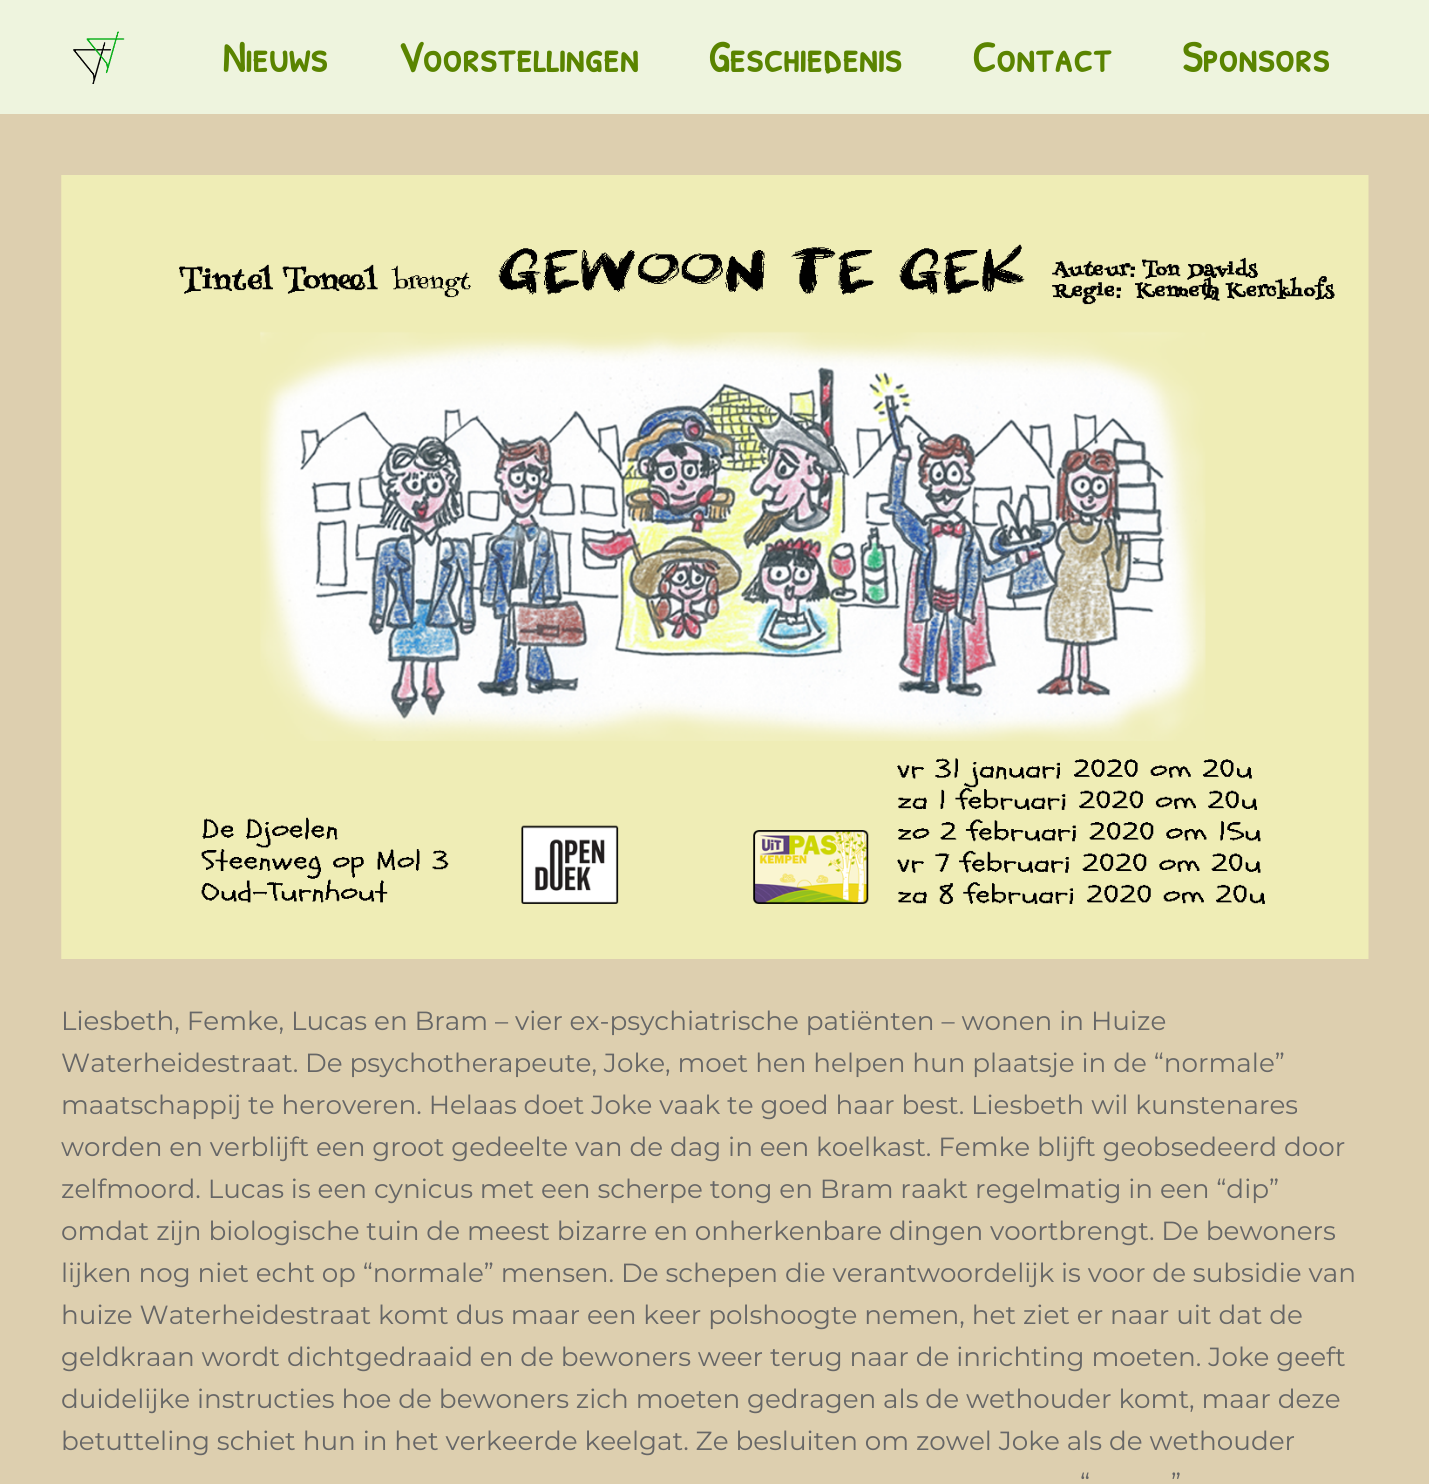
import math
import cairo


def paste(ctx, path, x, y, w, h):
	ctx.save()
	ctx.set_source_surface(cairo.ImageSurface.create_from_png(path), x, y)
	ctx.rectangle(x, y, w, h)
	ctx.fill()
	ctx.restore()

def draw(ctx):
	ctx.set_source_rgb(0.867, 0.812, 0.686)
	ctx.paint()
	ctx.set_source_rgb(0.933, 0.957, 0.871)
	ctx.rectangle(0, 0, 1429, 114)
	ctx.fill()
	paste(ctx, 'media/1.png', 73, 31, 52, 53)
	ctx.select_font_face('Patrick Hand SC', cairo.FONT_SLANT_NORMAL, cairo.FONT_WEIGHT_BOLD)
	ctx.set_font_size(43.75)
	ctx.set_source_rgb(0.353, 0.518, 0)
	for x, y, s in [
		(222, 72, 'Nieuws'),
		(398, 72, 'Voorstellingen'),
		(708, 72, 'Geschiedenis'),
		(972, 72, 'Contact'),
		(1182, 72, 'Sponsors'),
	]:
		ctx.move_to(x, y)
		ctx.show_text(s)
	paste(ctx, 'media/2.png', 61, 175, 1308, 784)
	ctx.select_font_face('Montserrat Thin')
	ctx.set_font_size(26.25)
	ctx.set_source_rgb(0.4, 0.4, 0.4)
	for x, y, s in [
		(61, 1030, 'Liesbeth, Femke, Lucas en Bram – vier ex-psychiatrische patiënten – wonen in Huize'),
		(61, 1072, 'Waterheidestraat. De psychotherapeute, Joke, moet hen helpen hun plaatsje in de “normale”'),
		(61, 1114, 'maatschappij te heroveren. Helaas doet Joke vaak te goed haar best. Liesbeth wil kunstenares'),
		(61, 1156, 'worden en verblijft een groot gedeelte van de dag in een koelkast. Femke blijft geobsedeerd door'),
		(61, 1198, 'zelfmoord. Lucas is een cynicus met een scherpe tong en Bram raakt regelmatig in een “dip”'),
		(61, 1240, 'omdat zijn biologische tuin de meest bizarre en onherkenbare dingen voortbrengt. De bewoners'),
		(61, 1282, 'lijken nog niet echt op “normale” mensen. De schepen die verantwoordelijk is voor de subsidie van'),
		(61, 1324, 'huize Waterheidestraat komt dus maar een keer polshoogte nemen, het ziet er naar uit dat de'),
		(61, 1366, 'geldkraan wordt dichtgedraaid en de bewoners weer terug naar de inrichting moeten. Joke geeft'),
		(61, 1408, 'duidelijke instructies hoe de bewoners zich moeten gedragen als de wethouder komt, maar deze'),
		(61, 1450, 'betutteling schiet hun in het verkeerde keelgat. Ze besluiten om zowel Joke als de wethouder'),
		(1080, 1492, '“'),
		(1171, 1492, '”'),
	]:
		ctx.move_to(x, y)
		ctx.show_text(s)


surface = cairo.ImageSurface(cairo.FORMAT_RGB24, 1429, 1484)
ctx = cairo.Context(surface)
options = cairo.FontOptions()
options.set_hint_metrics(cairo.HINT_METRICS_OFF)
options.set_hint_style(cairo.HINT_STYLE_NONE)
ctx.set_font_options(options)
ctx.set_miter_limit(4)
draw(ctx)
surface.write_to_png('image.png')
